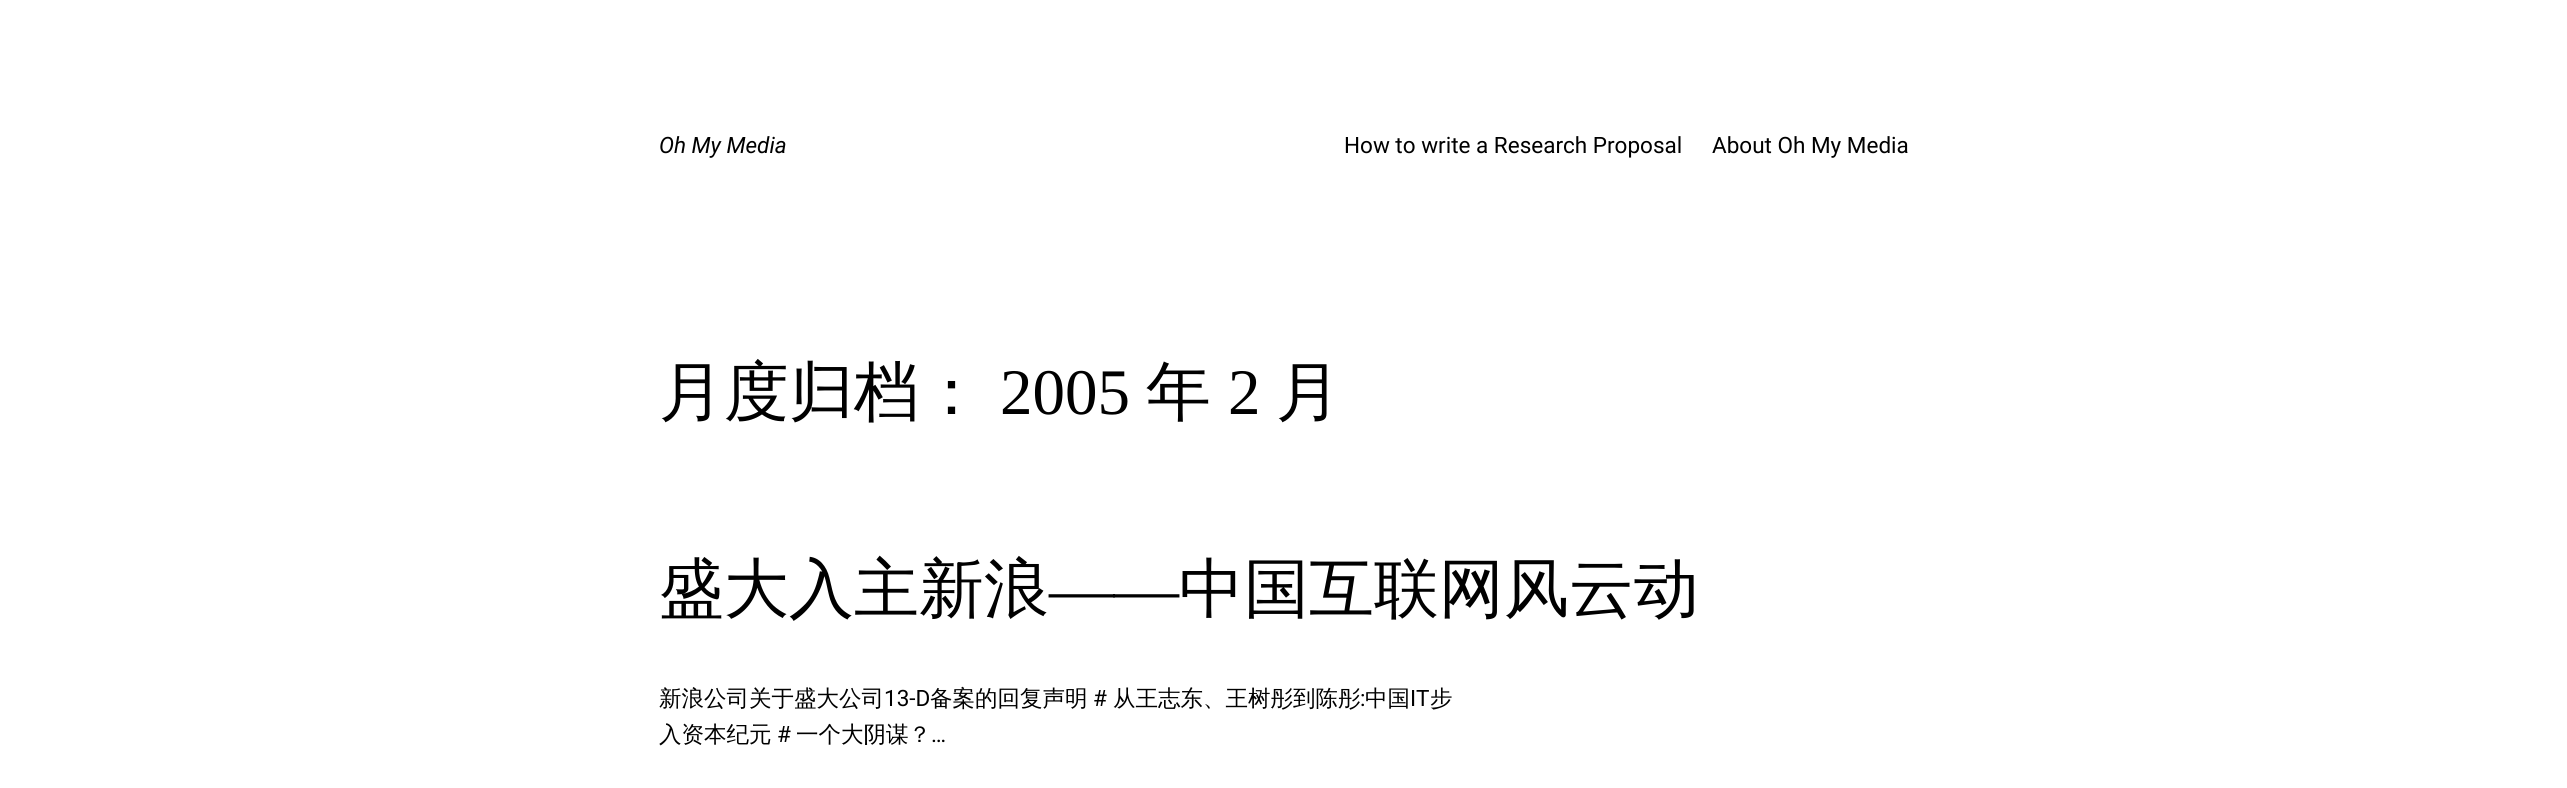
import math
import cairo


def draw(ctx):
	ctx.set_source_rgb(1, 1, 1)
	ctx.paint()
	ctx.select_font_face('Roboto', cairo.FONT_SLANT_ITALIC)
	ctx.set_font_size(22.5)
	ctx.set_source_rgb(0, 0, 0)
	ctx.move_to(659, 153)
	ctx.show_text('Oh My Media')
	ctx.select_font_face('Roboto')
	ctx.move_to(1344, 153)
	ctx.show_text('How to write a Research Proposal')
	ctx.move_to(1712, 153)
	ctx.show_text('About Oh My Media')
	ctx.select_font_face('WenQuanYi Zen Hei Medium')
	ctx.set_font_size(65)
	ctx.move_to(659, 414)
	ctx.show_text('月度归档：')
	ctx.select_font_face('Liberation Serif')
	ctx.move_to(1000, 414)
	ctx.show_text('2005')
	ctx.select_font_face('WenQuanYi Zen Hei Medium')
	ctx.move_to(1146, 414)
	ctx.show_text('年')
	ctx.select_font_face('Liberation Serif')
	ctx.move_to(1228, 414)
	ctx.show_text('2')
	ctx.select_font_face('WenQuanYi Zen Hei Medium')
	ctx.move_to(1276, 414)
	ctx.show_text('月')
	ctx.move_to(659, 611)
	ctx.show_text('盛大入主新浪')
	ctx.select_font_face('Liberation Serif')
	ctx.move_to(1049, 611)
	ctx.show_text('——')
	ctx.select_font_face('WenQuanYi Zen Hei Medium')
	ctx.move_to(1179, 611)
	ctx.show_text('中国互联网风云动')
	ctx.set_font_size(22.5)
	ctx.move_to(659, 706)
	ctx.show_text('新浪公司关于盛大公司')
	ctx.select_font_face('Roboto')
	ctx.move_to(884, 706)
	ctx.show_text('13-D')
	ctx.select_font_face('WenQuanYi Zen Hei Medium')
	ctx.move_to(930, 706)
	ctx.show_text('备案的回复声明')
	ctx.select_font_face('Roboto')
	ctx.move_to(1093, 706)
	ctx.show_text('#')
	ctx.select_font_face('WenQuanYi Zen Hei Medium')
	ctx.move_to(1113, 706)
	ctx.show_text('从王志东、王树彤到陈彤')
	ctx.select_font_face('Roboto')
	ctx.move_to(1360, 706)
	ctx.show_text(':')
	ctx.select_font_face('WenQuanYi Zen Hei Medium')
	ctx.move_to(1365, 706)
	ctx.show_text('中国')
	ctx.select_font_face('Roboto')
	ctx.move_to(1410, 706)
	ctx.show_text('IT')
	ctx.select_font_face('WenQuanYi Zen Hei Medium')
	ctx.move_to(1430, 706)
	ctx.show_text('步')
	ctx.move_to(659, 742)
	ctx.show_text('入资本纪元')
	ctx.select_font_face('Roboto')
	ctx.move_to(777, 742)
	ctx.show_text('#')
	ctx.select_font_face('WenQuanYi Zen Hei Medium')
	ctx.move_to(796, 742)
	ctx.show_text('一个大阴谋？')
	ctx.select_font_face('Roboto')
	ctx.move_to(931, 742)
	ctx.show_text('…')


surface = cairo.ImageSurface(cairo.FORMAT_RGB24, 2567, 788)
ctx = cairo.Context(surface)
options = cairo.FontOptions()
options.set_hint_metrics(cairo.HINT_METRICS_OFF)
options.set_hint_style(cairo.HINT_STYLE_NONE)
ctx.set_font_options(options)
ctx.set_miter_limit(4)
draw(ctx)
surface.write_to_png('image.png')
